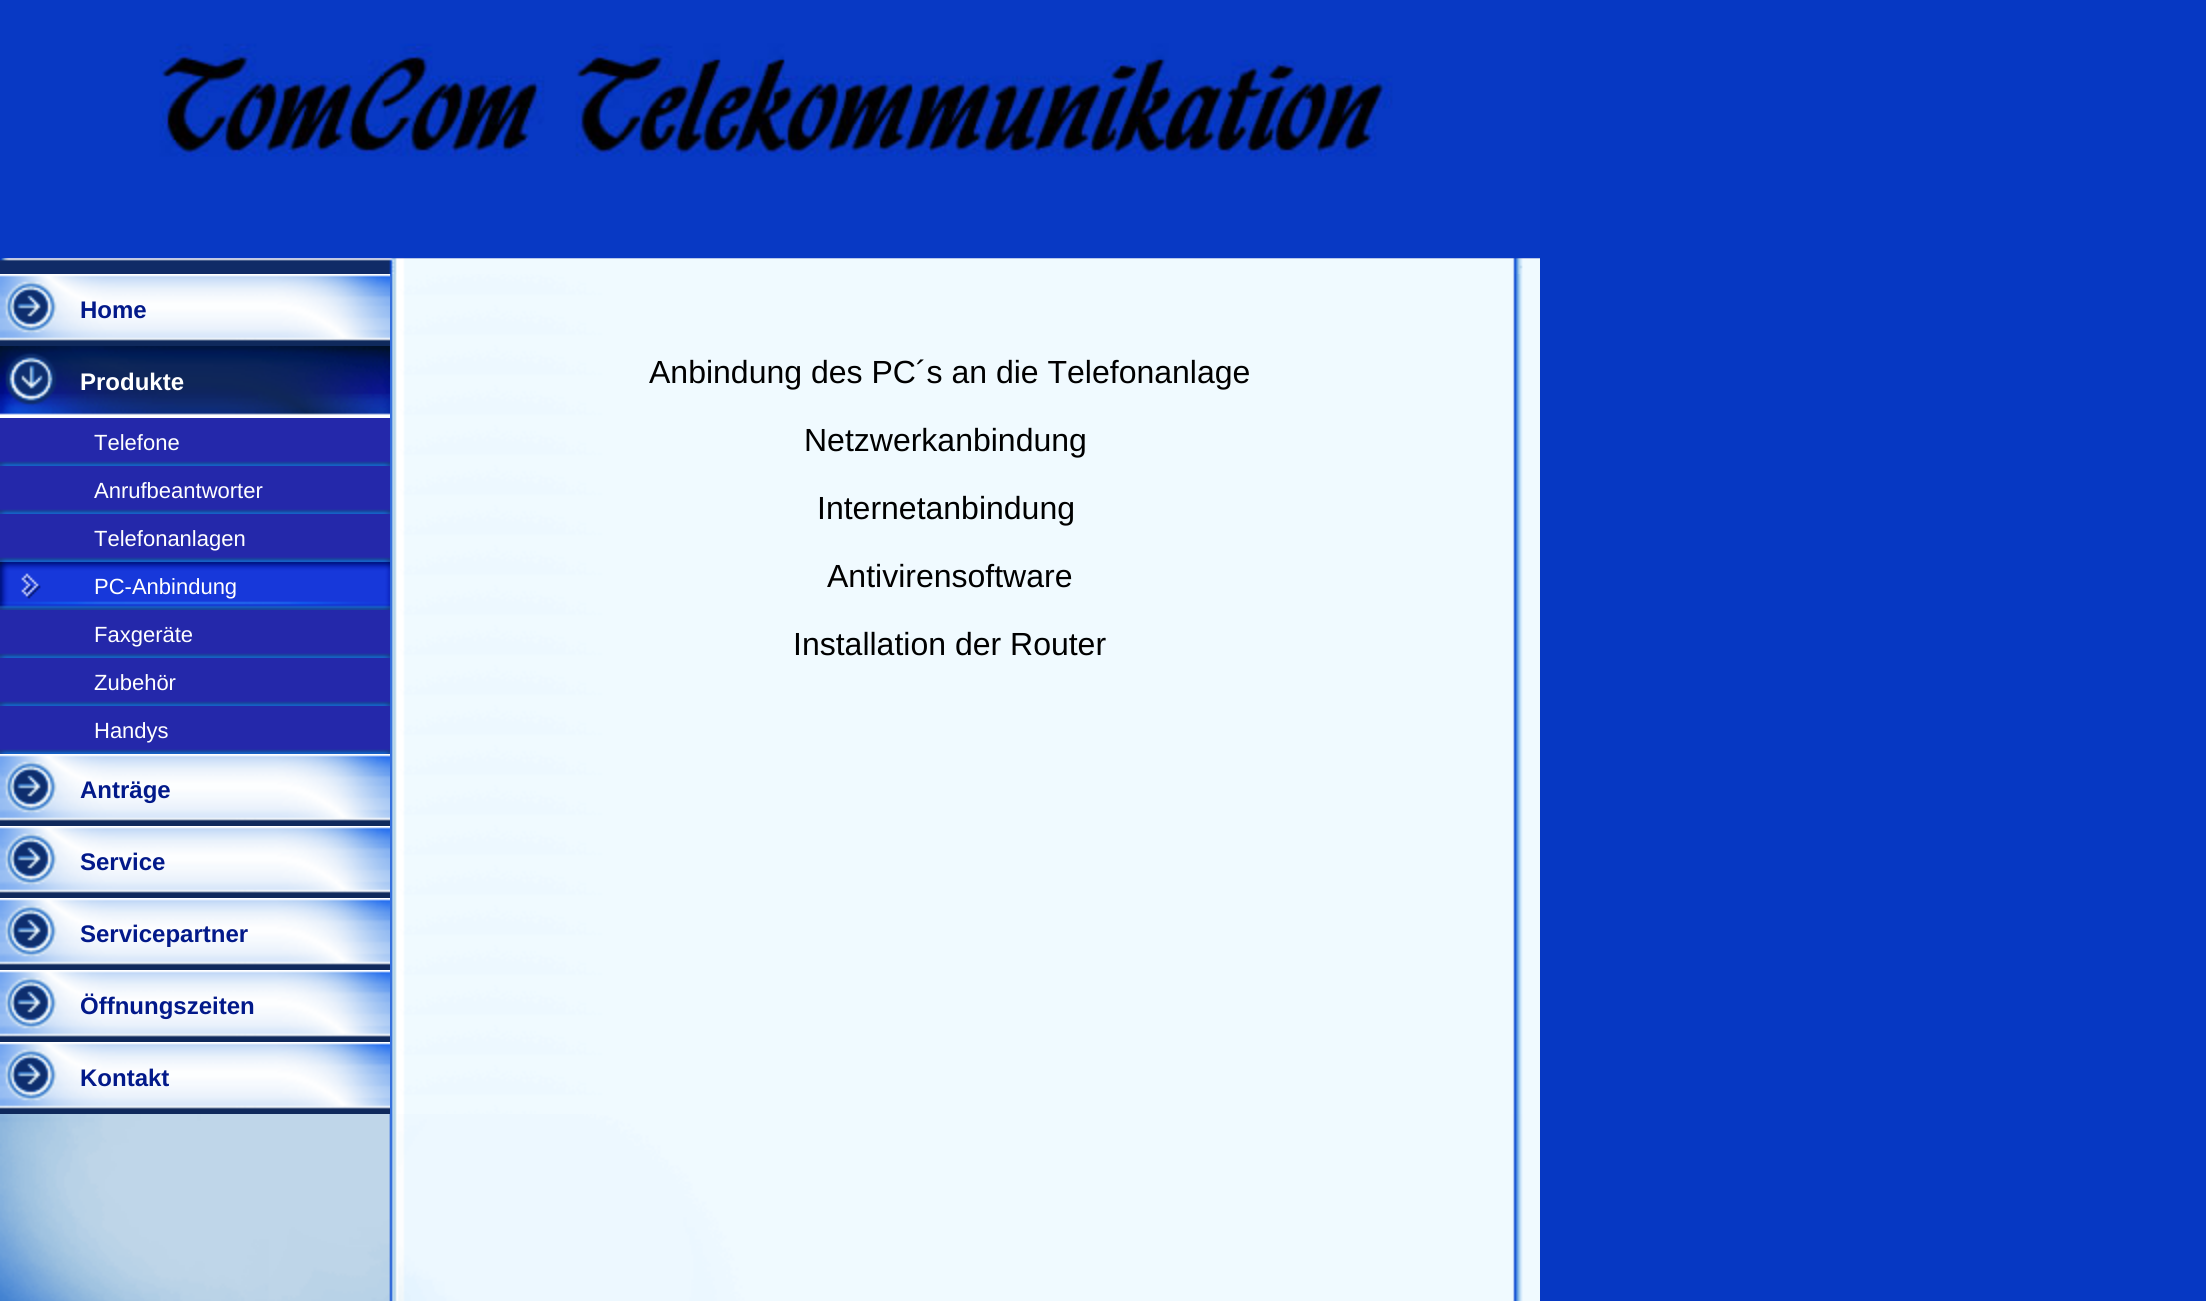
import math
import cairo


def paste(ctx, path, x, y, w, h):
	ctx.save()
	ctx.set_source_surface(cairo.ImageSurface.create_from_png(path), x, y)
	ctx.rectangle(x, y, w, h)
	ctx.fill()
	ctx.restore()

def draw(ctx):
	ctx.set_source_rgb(0.024, 0.22, 0.765)
	ctx.paint()
	paste(ctx, 'media/1.png', 390, 274, 1150, 840)
	paste(ctx, 'media/2.png', 0, 258, 1540, 16)
	paste(ctx, 'media/3.png', 0, 0, 1540, 258)
	paste(ctx, 'media/4.png', 0, 274, 390, 72)
	ctx.select_font_face('Liberation Sans', cairo.FONT_SLANT_NORMAL, cairo.FONT_WEIGHT_BOLD)
	ctx.set_font_size(24)
	ctx.set_source_rgb(0.008, 0.098, 0.541)
	ctx.move_to(80, 318)
	ctx.show_text('Home')
	paste(ctx, 'media/5.png', 0, 346, 390, 72)
	ctx.set_source_rgb(1, 1, 1)
	ctx.move_to(80, 390)
	ctx.show_text('Produkte')
	paste(ctx, 'media/6.png', 0, 418, 390, 48)
	ctx.select_font_face('Liberation Sans')
	ctx.set_font_size(22)
	ctx.move_to(94, 450)
	ctx.show_text('Telefone')
	paste(ctx, 'media/6.png', 0, 466, 390, 48)
	ctx.move_to(94, 498)
	ctx.show_text('Anrufbeantworter')
	paste(ctx, 'media/6.png', 0, 514, 390, 48)
	ctx.move_to(94, 546)
	ctx.show_text('Telefonanlagen')
	paste(ctx, 'media/7.png', 0, 562, 390, 48)
	ctx.move_to(94, 594)
	ctx.show_text('PC-Anbindung')
	paste(ctx, 'media/6.png', 0, 610, 390, 48)
	ctx.move_to(94, 642)
	ctx.show_text('Faxgeräte')
	paste(ctx, 'media/6.png', 0, 658, 390, 48)
	ctx.move_to(94, 690)
	ctx.show_text('Zubehör')
	paste(ctx, 'media/6.png', 0, 706, 390, 48)
	ctx.move_to(94, 738)
	ctx.show_text('Handys')
	paste(ctx, 'media/4.png', 0, 754, 390, 72)
	ctx.select_font_face('Liberation Sans', cairo.FONT_SLANT_NORMAL, cairo.FONT_WEIGHT_BOLD)
	ctx.set_font_size(24)
	ctx.set_source_rgb(0.008, 0.098, 0.541)
	ctx.move_to(80, 798)
	ctx.show_text('Anträge')
	paste(ctx, 'media/4.png', 0, 826, 390, 72)
	ctx.move_to(80, 870)
	ctx.show_text('Service')
	paste(ctx, 'media/4.png', 0, 898, 390, 72)
	ctx.move_to(80, 942)
	ctx.show_text('Servicepartner')
	paste(ctx, 'media/4.png', 0, 970, 390, 72)
	ctx.move_to(80, 1014)
	ctx.show_text('Öffnungszeiten')
	paste(ctx, 'media/4.png', 0, 1042, 390, 72)
	ctx.move_to(80, 1086)
	ctx.show_text('Kontakt')
	ctx.select_font_face('Liberation Sans')
	ctx.set_font_size(32)
	ctx.set_source_rgb(0, 0, 0)
	for x, y, s in [
		(649, 383, 'Anbindung des PC´s an die Telefonanlage'),
		(804, 451, 'Netzwerkanbindung'),
		(817, 519, 'Internetanbindung'),
		(827, 587, 'Antivirensoftware'),
		(793, 655, 'Installation der Router'),
	]:
		ctx.move_to(x, y)
		ctx.show_text(s)
	paste(ctx, 'media/8.png', 0, 1114, 1540, 187)


surface = cairo.ImageSurface(cairo.FORMAT_RGB24, 2206, 1301)
ctx = cairo.Context(surface)
options = cairo.FontOptions()
options.set_hint_metrics(cairo.HINT_METRICS_OFF)
options.set_hint_style(cairo.HINT_STYLE_NONE)
ctx.set_font_options(options)
ctx.set_miter_limit(4)
draw(ctx)
surface.write_to_png('image.png')
